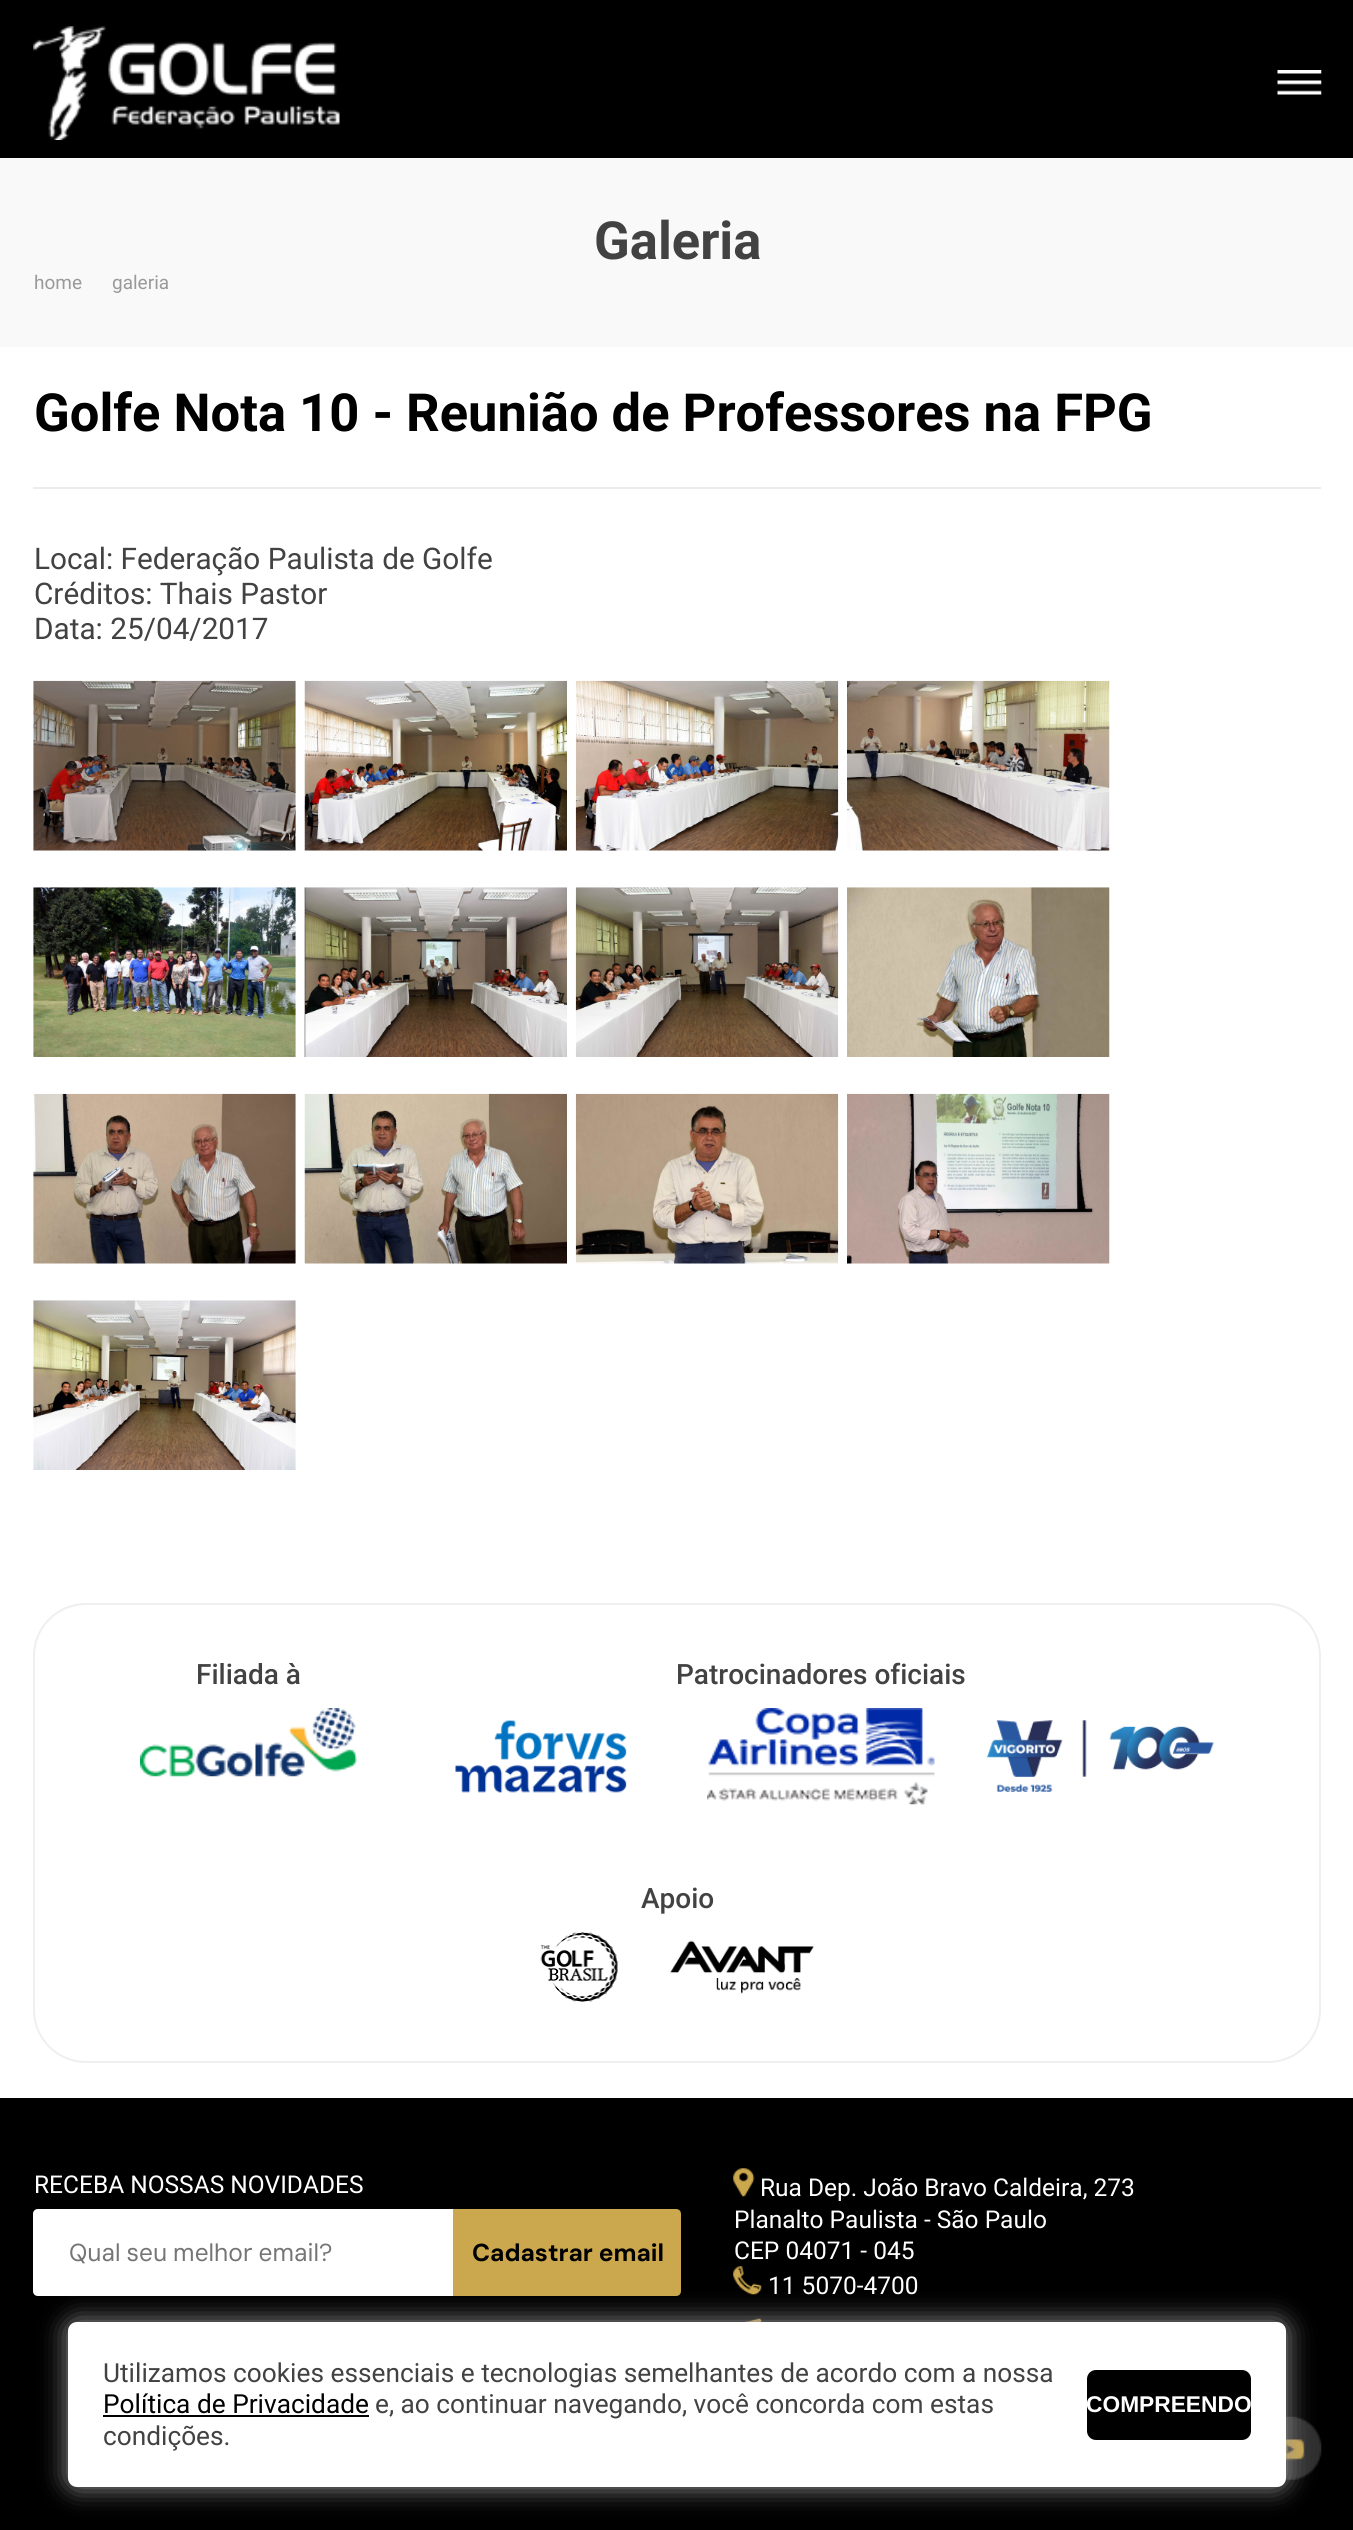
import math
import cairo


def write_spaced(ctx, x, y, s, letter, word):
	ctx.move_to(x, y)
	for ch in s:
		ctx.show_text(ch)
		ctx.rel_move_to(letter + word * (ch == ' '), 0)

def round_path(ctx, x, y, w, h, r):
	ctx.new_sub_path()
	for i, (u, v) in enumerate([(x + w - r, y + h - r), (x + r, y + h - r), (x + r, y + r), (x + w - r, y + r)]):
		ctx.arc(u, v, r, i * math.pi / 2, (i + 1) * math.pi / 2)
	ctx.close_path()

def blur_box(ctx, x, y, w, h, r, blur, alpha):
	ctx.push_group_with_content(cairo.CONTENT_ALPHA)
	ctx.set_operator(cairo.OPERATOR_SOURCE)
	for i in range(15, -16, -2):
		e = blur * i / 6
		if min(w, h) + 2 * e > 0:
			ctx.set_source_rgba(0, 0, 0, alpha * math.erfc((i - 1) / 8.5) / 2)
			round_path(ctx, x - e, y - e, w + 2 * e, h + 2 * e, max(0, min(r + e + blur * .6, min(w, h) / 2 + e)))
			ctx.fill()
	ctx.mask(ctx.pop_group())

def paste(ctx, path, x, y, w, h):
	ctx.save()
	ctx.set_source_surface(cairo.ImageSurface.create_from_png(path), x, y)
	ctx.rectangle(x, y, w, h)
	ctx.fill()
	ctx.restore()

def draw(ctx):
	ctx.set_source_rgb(1, 1, 1)
	ctx.paint()
	ctx.set_source_rgb(0, 0, 0)
	ctx.rectangle(0, 0, 1353, 158)
	ctx.fill()
	paste(ctx, 'media/1.png', 33, 26, 307, 114)
	paste(ctx, 'media/2.png', 1277, 70, 45, 25)
	ctx.set_source_rgb(0.976, 0.976, 0.976)
	ctx.rectangle(0, 158, 1353, 189)
	ctx.fill()
	ctx.select_font_face('Roboto', cairo.FONT_SLANT_NORMAL, cairo.FONT_WEIGHT_BOLD)
	ctx.set_font_size(52.5)
	ctx.set_source_rgb(0.259, 0.259, 0.259)
	ctx.move_to(594, 259)
	ctx.show_text('Galeria')
	ctx.select_font_face('Roboto')
	ctx.set_font_size(19)
	ctx.set_source_rgb(0.6, 0.6, 0.6)
	ctx.move_to(34, 289)
	ctx.show_text('home')
	ctx.move_to(112, 289)
	ctx.show_text('galeria')
	ctx.set_source_rgb(0.922, 0.922, 0.922)
	ctx.rectangle(33, 487, 1288, 2)
	ctx.fill()
	ctx.select_font_face('Roboto', cairo.FONT_SLANT_NORMAL, cairo.FONT_WEIGHT_BOLD)
	ctx.set_font_size(52.5)
	ctx.set_source_rgb(0, 0, 0)
	ctx.move_to(34, 431)
	ctx.show_text('Golfe Nota 10 - Reunião de Professores na FPG')
	ctx.select_font_face('Roboto')
	ctx.set_font_size(29.75)
	ctx.set_source_rgb(0.259, 0.259, 0.259)
	for x, y, s in [
		(34, 569, 'Local: Federação Paulista de Golfe'),
		(34, 604, 'Créditos: Thais Pastor'),
		(34, 639, 'Data: 25/04/2017'),
	]:
		ctx.move_to(x, y)
		ctx.show_text(s)
	paste(ctx, 'media/3.png', 33, 680, 263, 171)
	paste(ctx, 'media/4.png', 304, 680, 263, 171)
	paste(ctx, 'media/5.png', 575, 680, 264, 171)
	paste(ctx, 'media/6.png', 847, 680, 263, 171)
	paste(ctx, 'media/7.png', 33, 887, 263, 170)
	paste(ctx, 'media/8.png', 304, 887, 263, 170)
	paste(ctx, 'media/9.png', 575, 887, 264, 170)
	paste(ctx, 'media/10.png', 847, 887, 263, 170)
	paste(ctx, 'media/11.png', 33, 1093, 263, 171)
	paste(ctx, 'media/12.png', 304, 1093, 263, 171)
	paste(ctx, 'media/13.png', 575, 1093, 264, 171)
	paste(ctx, 'media/14.png', 847, 1093, 263, 171)
	paste(ctx, 'media/15.png', 33, 1300, 263, 170)
	round_path(ctx, 34, 1604, 1286, 458, 52)
	ctx.set_source_rgb(0.937, 0.937, 0.937)
	ctx.stroke()
	ctx.select_font_face('Roboto Medium')
	ctx.set_font_size(28)
	ctx.set_source_rgb(0.259, 0.259, 0.259)
	ctx.move_to(196, 1684)
	ctx.show_text('Filiada à')
	paste(ctx, 'media/16.png', 140, 1708, 217, 69)
	ctx.move_to(676, 1684)
	ctx.show_text('Patrocinadores oficiais')
	paste(ctx, 'media/17.png', 455, 1720, 172, 73)
	paste(ctx, 'media/18.png', 707, 1708, 228, 97)
	paste(ctx, 'media/19.png', 987, 1720, 227, 72)
	ctx.move_to(641, 1908)
	ctx.show_text('Apoio')
	paste(ctx, 'media/20.png', 540, 1932, 78, 70)
	paste(ctx, 'media/21.png', 670, 1940, 144, 54)
	ctx.set_source_rgb(0, 0, 0)
	ctx.rectangle(0, 2098, 1353, 432)
	ctx.fill()
	ctx.select_font_face('Roboto')
	ctx.set_font_size(24.5)
	ctx.set_source_rgb(1, 1, 1)
	ctx.move_to(34, 2193)
	ctx.show_text('RECEBA NOSSAS NOVIDADES')
	ctx.new_path()
	ctx.move_to(38, 2209)
	ctx.line_to(453, 2209)
	ctx.line_to(453, 2296)
	ctx.line_to(38, 2296)
	ctx.curve_to(35, 2296, 33, 2294, 33, 2291)
	ctx.line_to(33, 2214)
	ctx.curve_to(33, 2211, 35, 2209, 38, 2209)
	ctx.close_path()
	ctx.fill()
	ctx.select_font_face('DM Sans')
	ctx.set_source_rgb(0.459, 0.459, 0.459)
	write_spaced(ctx, 69, 2261, 'Qual seu melhor email?', 0, -0.5)
	ctx.set_source_rgb(0.796, 0.655, 0.302)
	ctx.new_path()
	ctx.move_to(453, 2209)
	ctx.line_to(676, 2209)
	ctx.curve_to(679, 2209, 681, 2211, 681, 2214)
	ctx.line_to(681, 2291)
	ctx.curve_to(681, 2294, 679, 2296, 676, 2296)
	ctx.line_to(453, 2296)
	ctx.close_path()
	ctx.fill()
	ctx.select_font_face('DM Sans', cairo.FONT_SLANT_NORMAL, cairo.FONT_WEIGHT_BOLD)
	ctx.set_source_rgb(0, 0, 0)
	ctx.move_to(472, 2261)
	ctx.show_text('Cadastrar email')
	paste(ctx, 'media/22.png', 733, 2168, 22, 29)
	ctx.select_font_face('Roboto')
	ctx.set_source_rgb(1, 1, 1)
	for x, y, s in [
		(760, 2196, 'Rua Dep. João Bravo Caldeira, 273'),
		(734, 2228, 'Planalto Paulista - São Paulo'),
		(734, 2259, 'CEP 04071 - 045'),
	]:
		ctx.move_to(x, y)
		ctx.show_text(s)
	paste(ctx, 'media/23.png', 733, 2266, 29, 29)
	ctx.move_to(768, 2294)
	ctx.show_text('11 5070-4700')
	paste(ctx, 'media/24.png', 745, 2318, 17, 4)
	paste(ctx, 'media/25.png', 1285, 2416, 37, 64)
	ctx.set_source_rgb(0.6, 0.6, 0.6)
	blur_box(ctx, 68, 2322, 1218, 165, 9, 13, 1)
	ctx.set_source_rgb(1, 1, 1)
	round_path(ctx, 68, 2322, 1218, 165, 9)
	ctx.fill()
	ctx.set_font_size(26.25)
	ctx.set_source_rgb(0.259, 0.259, 0.259)
	ctx.move_to(103, 2382)
	ctx.show_text('Utilizamos cookies essenciais e tecnologias semelhantes de acordo com a nossa')
	ctx.set_source_rgb(0, 0, 0)
	ctx.move_to(103, 2413)
	ctx.show_text('Política de Privacidade')
	ctx.rectangle(103, 2415, 266, 2)
	ctx.fill()
	ctx.set_source_rgb(0.259, 0.259, 0.259)
	ctx.move_to(375, 2413)
	ctx.show_text('e, ao continuar navegando, você concorda com estas')
	ctx.move_to(103, 2445)
	ctx.show_text('condições.')
	ctx.set_source_rgb(0, 0, 0)
	round_path(ctx, 1087, 2370, 164, 70, 9)
	ctx.fill()
	ctx.select_font_face('Liberation Sans', cairo.FONT_SLANT_NORMAL, cairo.FONT_WEIGHT_BOLD)
	ctx.set_font_size(22.75)
	ctx.set_source_rgb(1, 1, 1)
	ctx.move_to(1086, 2412)
	ctx.show_text('COMPREENDO')


surface = cairo.ImageSurface(cairo.FORMAT_RGB24, 1353, 2530)
ctx = cairo.Context(surface)
options = cairo.FontOptions()
options.set_hint_metrics(cairo.HINT_METRICS_OFF)
options.set_hint_style(cairo.HINT_STYLE_NONE)
ctx.set_font_options(options)
ctx.set_miter_limit(4)
draw(ctx)
surface.write_to_png('image.png')
